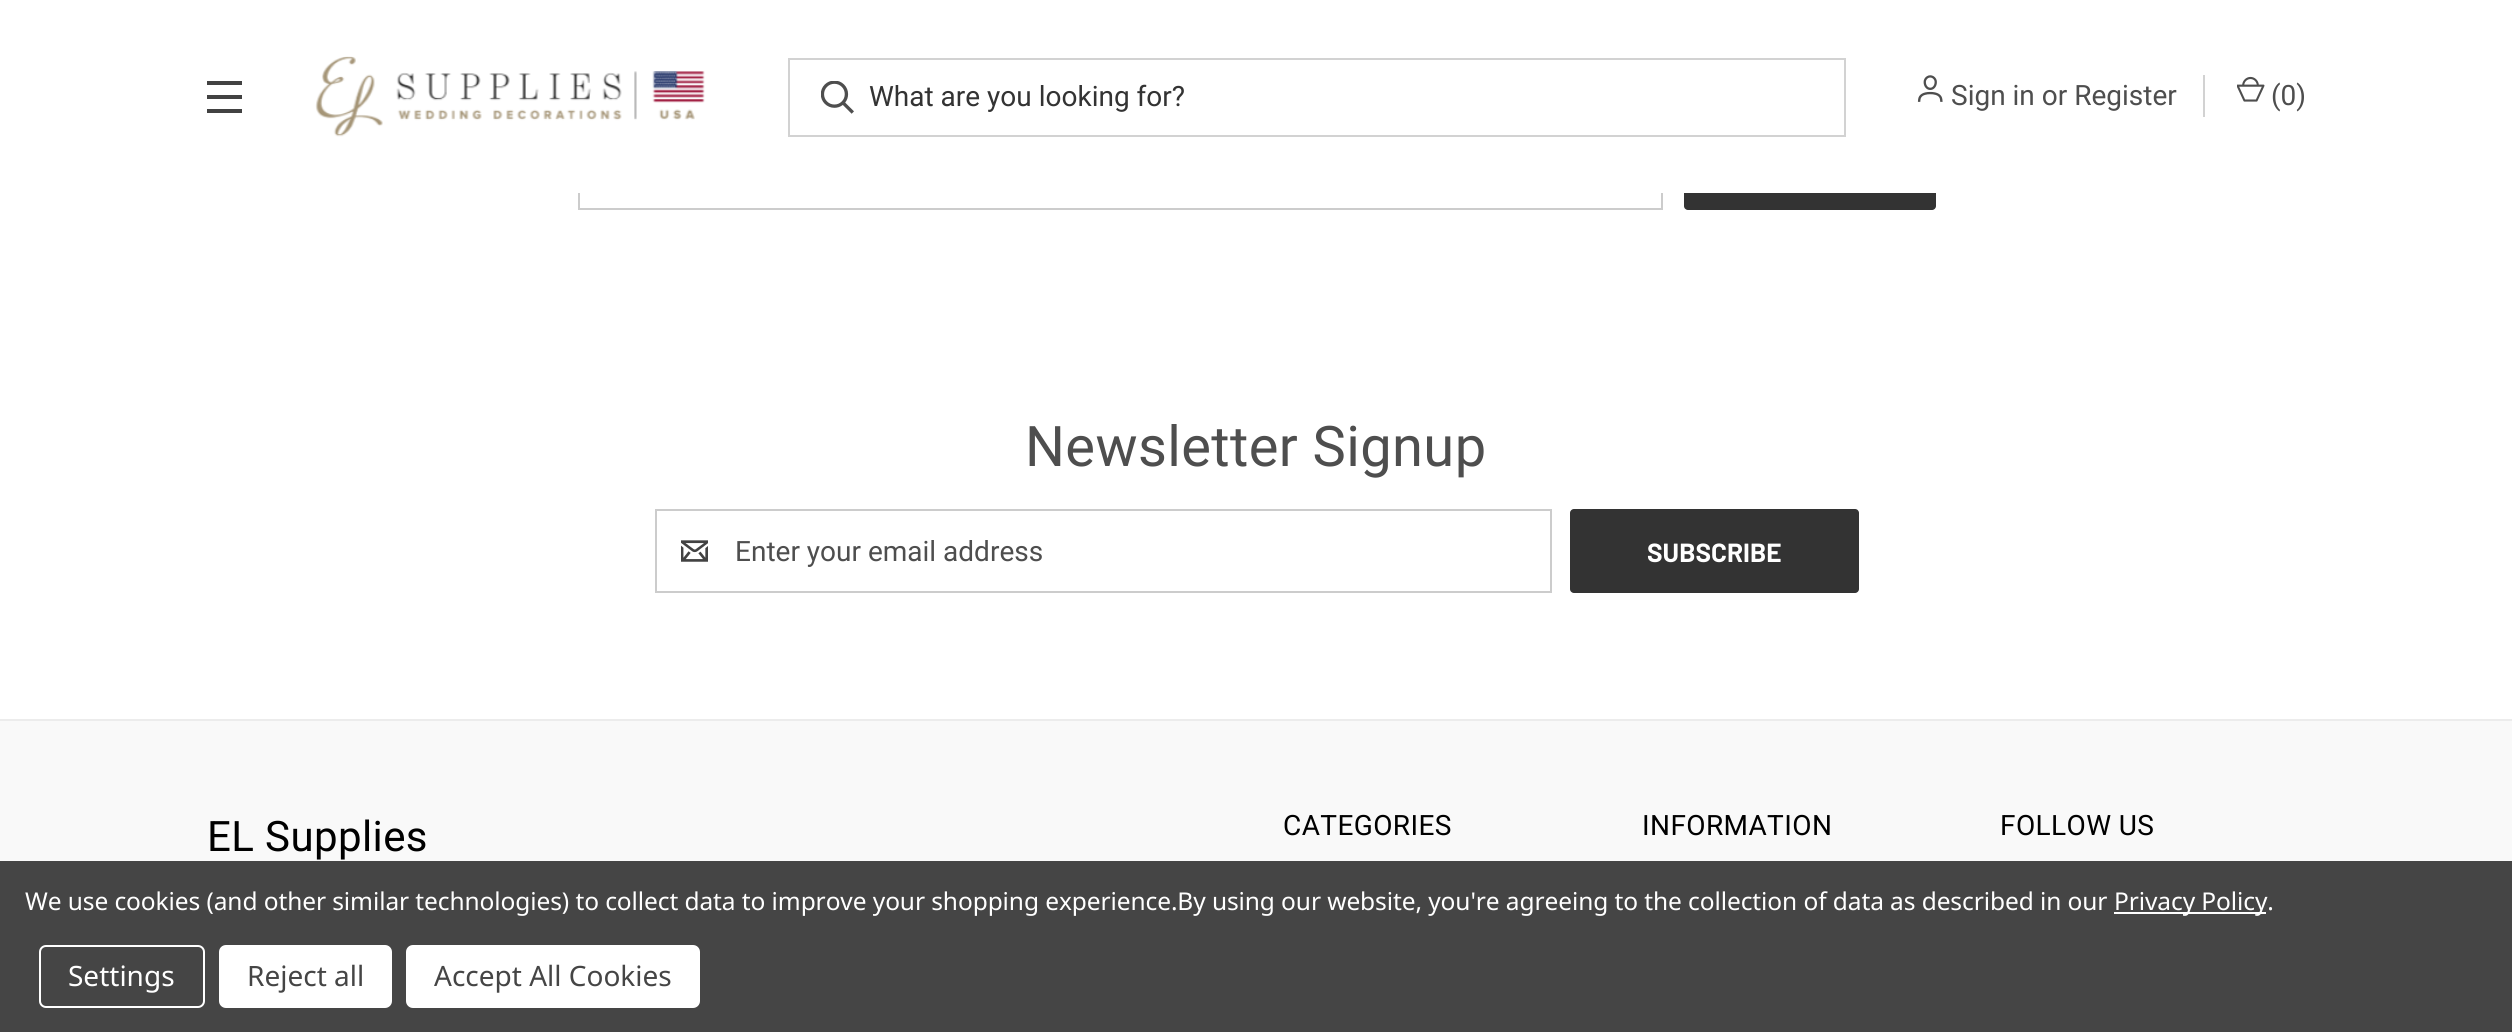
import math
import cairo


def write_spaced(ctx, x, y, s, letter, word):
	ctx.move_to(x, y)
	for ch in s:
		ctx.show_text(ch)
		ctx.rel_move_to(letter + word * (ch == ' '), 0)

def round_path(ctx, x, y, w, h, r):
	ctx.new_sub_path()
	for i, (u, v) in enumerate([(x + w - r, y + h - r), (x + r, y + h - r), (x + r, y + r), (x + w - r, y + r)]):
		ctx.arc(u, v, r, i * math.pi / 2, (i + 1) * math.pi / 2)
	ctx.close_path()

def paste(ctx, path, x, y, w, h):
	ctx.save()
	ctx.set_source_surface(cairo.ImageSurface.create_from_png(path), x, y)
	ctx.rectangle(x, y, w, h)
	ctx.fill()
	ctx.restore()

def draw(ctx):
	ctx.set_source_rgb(1, 1, 1)
	ctx.paint()
	ctx.rectangle(579, 127, 1083, 82)
	ctx.set_source_rgb(0.8, 0.8, 0.8)
	ctx.stroke()
	ctx.set_source_rgb(0.2, 0.2, 0.2)
	round_path(ctx, 1684, 126, 252, 84, 4)
	ctx.fill()
	ctx.set_source_rgb(1, 1, 1)
	ctx.rectangle(578, 126, 1358, 67)
	ctx.fill()
	ctx.set_source_rgb(0.259, 0.259, 0.259)
	ctx.rectangle(207, 95, 35, 4)
	ctx.rectangle(207, 81, 35, 4)
	ctx.rectangle(207, 109, 35, 4)
	ctx.fill()
	paste(ctx, 'media/1.png', 315, 56, 390, 81)
	ctx.rectangle(789, 59, 1056, 77)
	ctx.set_source_rgb(0.824, 0.824, 0.824)
	ctx.stroke()
	paste(ctx, 'media/2.png', 821, 81, 33, 33)
	ctx.select_font_face('Roboto')
	ctx.set_font_size(28)
	ctx.set_source_rgb(0.2, 0.2, 0.2)
	ctx.move_to(869, 106)
	ctx.show_text('What are you looking for?')
	paste(ctx, 'media/3.png', 1917, 75, 26, 27)
	ctx.set_source_rgb(0.306, 0.306, 0.306)
	ctx.move_to(1951, 105)
	ctx.show_text('Sign in or Register')
	ctx.set_source_rgb(0.824, 0.824, 0.824)
	ctx.rectangle(2203, 75, 2, 42)
	ctx.fill()
	paste(ctx, 'media/4.png', 2237, 76, 28, 26)
	ctx.set_source_rgb(0.306, 0.306, 0.306)
	ctx.move_to(2271, 105)
	ctx.show_text('(0)')
	ctx.set_font_size(56)
	write_spaced(ctx, 1025, 466, 'Newsletter Signup', 0.4, 0)
	ctx.rectangle(656, 510, 895, 82)
	ctx.set_source_rgb(0.8, 0.8, 0.8)
	ctx.stroke()
	paste(ctx, 'media/5.png', 681, 540, 27, 22)
	ctx.set_font_size(28)
	ctx.set_source_rgb(0.306, 0.306, 0.306)
	ctx.move_to(735, 561)
	ctx.show_text('Enter your email address')
	ctx.set_source_rgb(0.2, 0.2, 0.2)
	round_path(ctx, 1570, 509, 289, 84, 4)
	ctx.fill()
	ctx.select_font_face('Barlow', cairo.FONT_SLANT_NORMAL, cairo.FONT_WEIGHT_BOLD)
	ctx.set_font_size(26.25)
	ctx.set_source_rgb(1, 1, 1)
	ctx.move_to(1647, 562)
	ctx.show_text('SUBSCRIBE')
	ctx.set_source_rgb(0.973, 0.973, 0.973)
	ctx.rectangle(0, 721, 2512, 140)
	ctx.fill()
	ctx.set_source_rgb(0.922, 0.922, 0.922)
	ctx.rectangle(0, 719, 2512, 2)
	ctx.fill()
	ctx.select_font_face('Roboto')
	ctx.set_font_size(42)
	ctx.set_source_rgb(0, 0, 0)
	write_spaced(ctx, 207, 851, 'EL Supplies', 0.4, 0)
	ctx.set_font_size(28)
	for x, y, s in [
		(1283, 835, 'CATEGORIES'),
		(1642, 835, 'INFORMATION'),
		(2000, 835, 'FOLLOW US'),
	]:
		write_spaced(ctx, x, y, s, 0.4, 0)
	ctx.set_source_rgb(0.271, 0.271, 0.271)
	ctx.rectangle(0, 861, 2512, 171)
	ctx.fill()
	ctx.select_font_face('Noto Sans')
	ctx.set_font_size(24.5)
	ctx.set_source_rgb(1, 1, 1)
	write_spaced(ctx, 25, 910, 'We use cookies (and other similar technologies) to collect data to improve your shopping experience.By using our website, you\'re agreeing to the collection of data as described in our', -0.09, 0)
	ctx.rectangle(2114, 912, 152, 2)
	ctx.fill()
	write_spaced(ctx, 2114, 910, 'Privacy Policy.', -0.09, 0)
	round_path(ctx, 40, 946, 164, 61, 6)
	ctx.stroke()
	ctx.set_font_size(28)
	ctx.move_to(68, 986)
	ctx.show_text('Settings')
	round_path(ctx, 219, 945, 173, 63, 7)
	ctx.fill()
	ctx.set_source_rgb(0.271, 0.271, 0.271)
	ctx.move_to(247, 986)
	ctx.show_text('Reject all')
	ctx.set_source_rgb(1, 1, 1)
	round_path(ctx, 406, 945, 294, 63, 7)
	ctx.fill()
	ctx.set_source_rgb(0.271, 0.271, 0.271)
	ctx.move_to(434, 986)
	ctx.show_text('Accept All Cookies')


surface = cairo.ImageSurface(cairo.FORMAT_RGB24, 2512, 1032)
ctx = cairo.Context(surface)
options = cairo.FontOptions()
options.set_hint_metrics(cairo.HINT_METRICS_OFF)
options.set_hint_style(cairo.HINT_STYLE_NONE)
ctx.set_font_options(options)
ctx.set_miter_limit(4)
draw(ctx)
surface.write_to_png('image.png')
